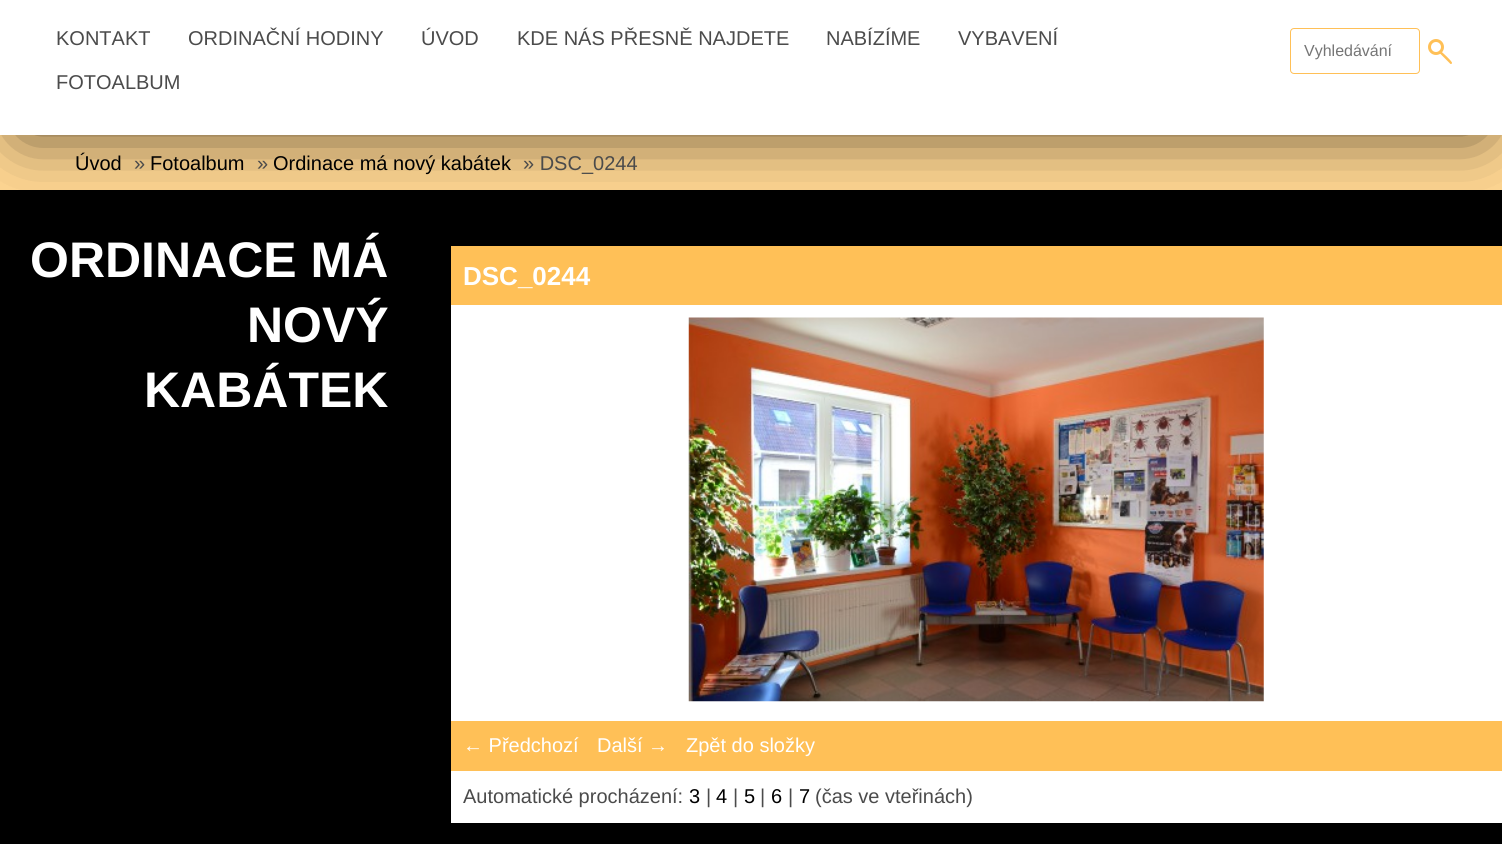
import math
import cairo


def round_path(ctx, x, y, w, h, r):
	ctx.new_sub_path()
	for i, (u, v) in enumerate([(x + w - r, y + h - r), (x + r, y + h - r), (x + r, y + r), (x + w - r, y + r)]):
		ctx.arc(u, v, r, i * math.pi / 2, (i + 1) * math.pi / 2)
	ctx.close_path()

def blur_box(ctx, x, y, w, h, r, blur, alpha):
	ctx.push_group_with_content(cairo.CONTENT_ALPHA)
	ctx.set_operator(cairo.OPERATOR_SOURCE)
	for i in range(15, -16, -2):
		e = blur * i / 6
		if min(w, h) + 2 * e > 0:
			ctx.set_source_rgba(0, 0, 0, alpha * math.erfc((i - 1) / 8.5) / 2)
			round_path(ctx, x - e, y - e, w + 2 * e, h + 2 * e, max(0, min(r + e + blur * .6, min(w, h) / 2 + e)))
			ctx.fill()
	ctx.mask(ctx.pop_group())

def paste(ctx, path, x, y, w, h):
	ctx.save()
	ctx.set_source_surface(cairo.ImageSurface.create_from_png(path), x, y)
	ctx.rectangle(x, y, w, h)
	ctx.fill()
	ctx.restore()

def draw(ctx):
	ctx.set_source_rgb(1, 1, 1)
	ctx.paint()
	ctx.set_source_rgb(1, 0.839, 0.573)
	ctx.rectangle(0, 135, 1502, 55)
	ctx.fill()
	ctx.set_source_rgb(0, 0, 0)
	ctx.rectangle(0, 190, 1502, 654)
	ctx.fill()
	ctx.save()
	ctx.rectangle(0, 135, 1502, 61)
	ctx.clip()
	ctx.set_source_rgb(0, 0, 0)
	blur_box(ctx, 23, 41, 1457, 90, 0, 34, 0.7)
	ctx.restore()
	ctx.select_font_face('Liberation Sans')
	ctx.set_font_size(20)
	ctx.set_source_rgb(0.294, 0.294, 0.294)
	for x, y, s in [
		(56, 45, 'KONTAKT'),
		(188, 45, 'ORDINAČNÍ HODINY'),
		(421, 45, 'ÚVOD'),
		(517, 45, 'KDE NÁS PŘESNĚ NAJDETE'),
		(826, 45, 'NABÍZÍME'),
		(958, 45, 'VYBAVENÍ'),
		(56, 89, 'FOTOALBUM'),
	]:
		ctx.move_to(x, y)
		ctx.show_text(s)
	round_path(ctx, 1290.5, 28.5, 129, 45, 3.5)
	ctx.set_source_rgb(1, 0.753, 0.341)
	ctx.set_line_width(1)
	ctx.stroke()
	ctx.set_font_size(16)
	ctx.set_source_rgb(0.459, 0.459, 0.459)
	ctx.move_to(1304, 56)
	ctx.show_text('Vyhledávání')
	ctx.new_path()
	ctx.arc(1436, 47, 6.5, 0, 2 * math.pi)
	ctx.set_source_rgb(1, 0.753, 0.341)
	ctx.set_line_width(3)
	ctx.stroke()
	ctx.new_path()
	ctx.move_to(1438.5, 52)
	ctx.line_to(1440, 50.5)
	ctx.curve_to(1442, 52, 1452.5, 61.5, 1452, 63)
	ctx.curve_to(1452, 64, 1450.5, 64.5, 1450, 63.5)
	ctx.close_path()
	ctx.fill()
	ctx.set_font_size(20)
	ctx.set_source_rgb(0, 0, 0)
	ctx.move_to(75, 170)
	ctx.show_text('Úvod')
	ctx.set_source_rgb(0.294, 0.294, 0.294)
	ctx.move_to(134, 170)
	ctx.show_text('»')
	ctx.set_source_rgb(0, 0, 0)
	ctx.move_to(150, 170)
	ctx.show_text('Fotoalbum')
	ctx.set_source_rgb(0.294, 0.294, 0.294)
	ctx.move_to(257, 170)
	ctx.show_text('»')
	ctx.set_source_rgb(0, 0, 0)
	ctx.move_to(273, 170)
	ctx.show_text('Ordinace má nový kabátek')
	ctx.set_source_rgb(0.294, 0.294, 0.294)
	ctx.move_to(523, 170)
	ctx.show_text('» DSC_0244')
	ctx.select_font_face('Liberation Sans', cairo.FONT_SLANT_NORMAL, cairo.FONT_WEIGHT_BOLD)
	ctx.set_font_size(50)
	ctx.set_source_rgb(1, 1, 1)
	for x, y, s in [
		(30, 277, 'ORDINACE MÁ'),
		(247, 342, 'NOVÝ'),
		(144, 407, 'KABÁTEK'),
	]:
		ctx.move_to(x, y)
		ctx.show_text(s)
	ctx.set_source_rgb(1, 0.753, 0.341)
	ctx.rectangle(451, 246, 1051, 59)
	ctx.fill()
	ctx.set_font_size(26)
	ctx.set_source_rgb(1, 1, 1)
	ctx.move_to(463, 285)
	ctx.show_text('DSC_0244')
	ctx.rectangle(451, 305, 1051, 416)
	ctx.fill()
	paste(ctx, 'media/1.png', 688, 317, 576, 385)
	ctx.set_source_rgb(1, 0.753, 0.341)
	ctx.rectangle(451, 721, 1051, 50)
	ctx.fill()
	ctx.select_font_face('Liberation Sans')
	ctx.set_font_size(20)
	ctx.set_source_rgb(1, 1, 1)
	for x, y, s in [
		(463, 752, '← Předchozí'),
		(597, 752, 'Další →'),
		(686, 752, 'Zpět do složky'),
	]:
		ctx.move_to(x, y)
		ctx.show_text(s)
	ctx.rectangle(451, 771, 1051, 52)
	ctx.fill()
	ctx.set_source_rgb(0.294, 0.294, 0.294)
	ctx.move_to(463, 803)
	ctx.show_text('Automatické procházení:')
	ctx.set_source_rgb(0, 0, 0)
	ctx.move_to(689, 803)
	ctx.show_text('3')
	ctx.set_source_rgb(0.294, 0.294, 0.294)
	ctx.move_to(706, 803)
	ctx.show_text('|')
	ctx.set_source_rgb(0, 0, 0)
	ctx.move_to(716, 803)
	ctx.show_text('4')
	ctx.set_source_rgb(0.294, 0.294, 0.294)
	ctx.move_to(733, 803)
	ctx.show_text('|')
	ctx.set_source_rgb(0, 0, 0)
	ctx.move_to(744, 803)
	ctx.show_text('5')
	ctx.set_source_rgb(0.294, 0.294, 0.294)
	ctx.move_to(760, 803)
	ctx.show_text('|')
	ctx.set_source_rgb(0, 0, 0)
	ctx.move_to(771, 803)
	ctx.show_text('6')
	ctx.set_source_rgb(0.294, 0.294, 0.294)
	ctx.move_to(788, 803)
	ctx.show_text('|')
	ctx.set_source_rgb(0, 0, 0)
	ctx.move_to(799, 803)
	ctx.show_text('7')
	ctx.set_source_rgb(0.294, 0.294, 0.294)
	ctx.move_to(815, 803)
	ctx.show_text('(čas ve vteřinách)')


surface = cairo.ImageSurface(cairo.FORMAT_RGB24, 1502, 844)
ctx = cairo.Context(surface)
options = cairo.FontOptions()
options.set_hint_metrics(cairo.HINT_METRICS_OFF)
options.set_hint_style(cairo.HINT_STYLE_NONE)
ctx.set_font_options(options)
ctx.set_miter_limit(4)
draw(ctx)
surface.write_to_png('image.png')
